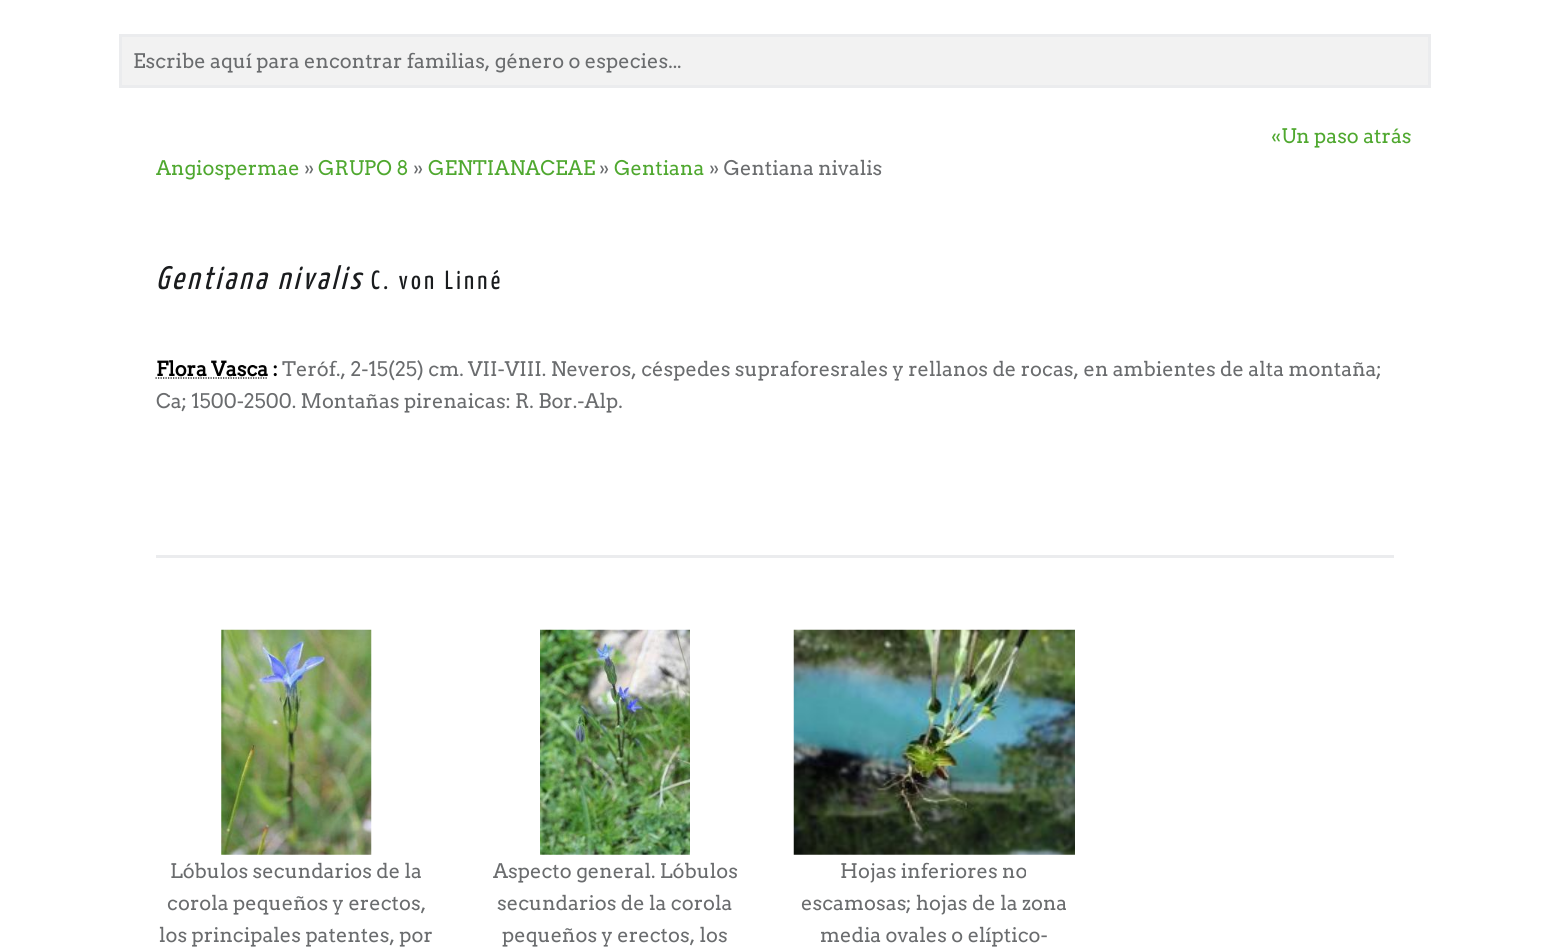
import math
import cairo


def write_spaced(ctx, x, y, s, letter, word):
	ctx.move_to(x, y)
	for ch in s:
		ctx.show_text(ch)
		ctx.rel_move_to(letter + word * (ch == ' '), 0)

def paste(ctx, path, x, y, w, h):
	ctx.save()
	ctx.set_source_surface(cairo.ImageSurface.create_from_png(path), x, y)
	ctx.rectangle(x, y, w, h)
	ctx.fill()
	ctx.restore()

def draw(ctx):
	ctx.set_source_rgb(1, 1, 1)
	ctx.paint()
	ctx.set_source_rgb(0.949, 0.949, 0.949)
	ctx.rectangle(120.5, 35.5, 1309, 51)
	ctx.fill_preserve()
	ctx.set_source_rgb(0.918, 0.925, 0.933)
	ctx.set_line_width(3)
	ctx.stroke()
	ctx.select_font_face('Arvo')
	ctx.set_font_size(20)
	ctx.set_source_rgb(0.416, 0.424, 0.431)
	ctx.move_to(133, 68)
	ctx.show_text('Escribe aquí para encontrar familias, género o especies...')
	ctx.set_source_rgb(0.31, 0.659, 0.184)
	ctx.move_to(1271, 143)
	ctx.show_text('«Un paso atrás')
	ctx.move_to(156, 175)
	ctx.show_text('Angiospermae')
	ctx.set_source_rgb(0.416, 0.424, 0.431)
	ctx.move_to(304, 175)
	ctx.show_text('»')
	ctx.set_source_rgb(0.31, 0.659, 0.184)
	ctx.move_to(318, 175)
	ctx.show_text('GRUPO 8')
	ctx.set_source_rgb(0.416, 0.424, 0.431)
	ctx.move_to(413, 175)
	ctx.show_text('»')
	ctx.set_source_rgb(0.31, 0.659, 0.184)
	ctx.move_to(428, 175)
	ctx.show_text('GENTIANACEAE')
	ctx.set_source_rgb(0.416, 0.424, 0.431)
	ctx.move_to(599, 175)
	ctx.show_text('»')
	ctx.set_source_rgb(0.31, 0.659, 0.184)
	ctx.move_to(614, 175)
	ctx.show_text('Gentiana')
	ctx.set_source_rgb(0.416, 0.424, 0.431)
	ctx.move_to(709, 175)
	ctx.show_text('» Gentiana nivalis')
	ctx.select_font_face('Yanone Kaffeesatz', cairo.FONT_SLANT_ITALIC)
	ctx.set_font_size(32.5)
	ctx.set_source_rgb(0.102, 0.11, 0.118)
	write_spaced(ctx, 156, 289, 'Gentiana nivalis', 3.25, 0)
	ctx.select_font_face('Yanone Kaffeesatz')
	ctx.set_font_size(26.25)
	write_spaced(ctx, 371, 289, 'C. von Linné', 3.25, 0)
	ctx.select_font_face('Arvo', cairo.FONT_SLANT_NORMAL, cairo.FONT_WEIGHT_BOLD)
	ctx.set_font_size(20)
	ctx.set_source_rgb(0, 0, 0)
	ctx.move_to(156, 376)
	ctx.show_text('Flora Vasca :')
	ctx.new_path()
	ctx.move_to(155.5, 378)
	ctx.line_to(268, 378)
	ctx.set_line_width(1.2)
	ctx.set_dash([1.25, 1.25])
	ctx.stroke()
	ctx.select_font_face('Arvo')
	ctx.set_source_rgb(0.416, 0.424, 0.431)
	ctx.move_to(282, 376)
	ctx.show_text('Teróf., 2-15(25) cm. VII-VIII. Neveros, céspedes supraforesrales y rellanos de rocas, en ambientes de alta montaña;')
	ctx.move_to(156, 408)
	ctx.show_text('Ca; 1500-2500. Montañas pirenaicas: R. Bor.-Alp.')
	ctx.set_source_rgb(0.918, 0.925, 0.933)
	ctx.rectangle(156, 555, 1238, 3)
	ctx.fill()
	paste(ctx, 'media/1.png', 221, 629, 151, 226)
	ctx.set_source_rgb(0.416, 0.424, 0.431)
	for x, y, s in [
		(170, 878, 'Lóbulos secundarios de la'),
		(167, 910, 'corola pequeños y erectos,'),
		(159, 942, 'los principales patentes, por'),
	]:
		ctx.move_to(x, y)
		ctx.show_text(s)
	paste(ctx, 'media/2.png', 540, 629, 150, 226)
	for x, y, s in [
		(493, 878, 'Aspecto general. Lóbulos'),
		(497, 910, 'secundarios de la corola'),
		(502, 942, 'pequeños y erectos, los'),
	]:
		ctx.move_to(x, y)
		ctx.show_text(s)
	paste(ctx, 'media/3.png', 793, 629, 282, 226)
	for x, y, s in [
		(840, 878, 'Hojas inferiores no'),
		(801, 910, 'escamosas; hojas de la zona'),
		(820, 942, 'media ovales o elíptico-'),
	]:
		ctx.move_to(x, y)
		ctx.show_text(s)


surface = cairo.ImageSurface(cairo.FORMAT_RGB24, 1548, 948)
ctx = cairo.Context(surface)
options = cairo.FontOptions()
options.set_hint_metrics(cairo.HINT_METRICS_OFF)
options.set_hint_style(cairo.HINT_STYLE_NONE)
ctx.set_font_options(options)
ctx.set_miter_limit(4)
draw(ctx)
surface.write_to_png('image.png')
